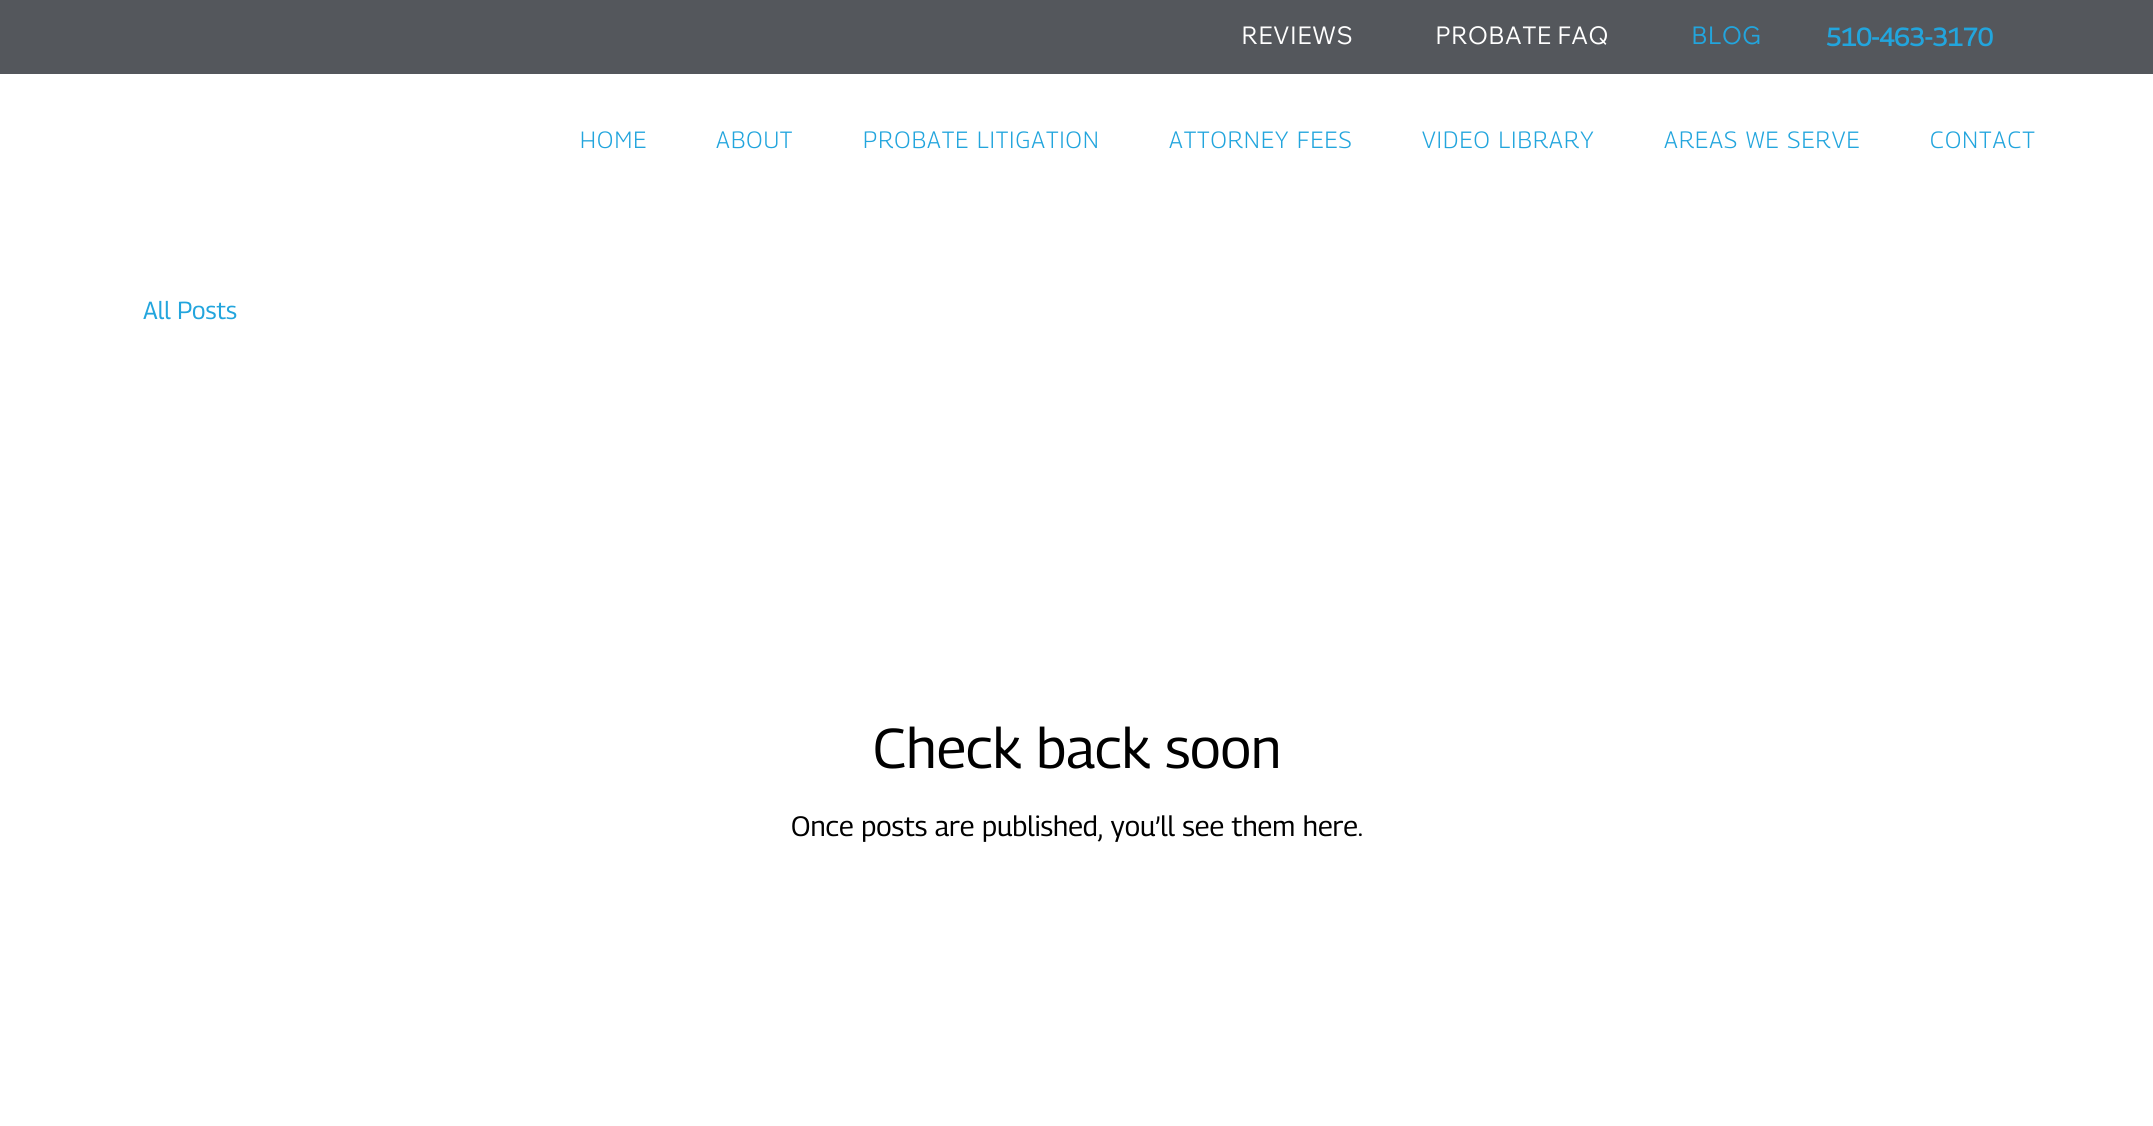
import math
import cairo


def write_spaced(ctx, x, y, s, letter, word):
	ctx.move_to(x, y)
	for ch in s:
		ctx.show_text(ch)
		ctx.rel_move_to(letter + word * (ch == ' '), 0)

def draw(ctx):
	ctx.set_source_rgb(1, 1, 1)
	ctx.paint()
	ctx.set_source_rgb(0.329, 0.341, 0.361)
	ctx.rectangle(0, 0, 2153, 74)
	ctx.fill()
	ctx.select_font_face('Wix Madefor Text')
	ctx.set_font_size(24.5)
	ctx.set_source_rgb(1, 1, 1)
	ctx.move_to(1241, 44)
	ctx.show_text('REVIEWS')
	ctx.move_to(1435, 44)
	ctx.show_text('PROBATE FAQ')
	ctx.set_source_rgb(0.133, 0.647, 0.867)
	ctx.move_to(1691, 44)
	ctx.show_text('BLOG')
	ctx.select_font_face('Georama', cairo.FONT_SLANT_NORMAL, cairo.FONT_WEIGHT_BOLD)
	ctx.set_font_size(25.25)
	ctx.move_to(1826, 46)
	ctx.show_text('510-463-3170')
	ctx.select_font_face('Georama Light')
	ctx.set_font_size(23.5)
	for x, y, s in [
		(580, 148, 'HOME'),
		(716, 148, 'ABOUT'),
		(863, 148, 'PROBATE LITIGATION'),
		(1169, 148, 'ATTORNEY FEES'),
		(1422, 148, 'VIDEO LIBRARY'),
		(1664, 148, 'AREAS WE SERVE'),
		(1930, 148, 'CONTACT'),
	]:
		write_spaced(ctx, x, y, s, 1.2, 0)
	ctx.select_font_face('Georama')
	ctx.set_font_size(24.5)
	ctx.move_to(143, 319)
	ctx.show_text('All Posts')
	ctx.set_font_size(56)
	ctx.set_source_rgb(0, 0, 0)
	ctx.move_to(873, 768)
	ctx.show_text('Check back soon')
	ctx.set_font_size(28)
	ctx.move_to(791, 836)
	ctx.show_text('Once posts are published, you’ll see them here.')


surface = cairo.ImageSurface(cairo.FORMAT_RGB24, 2153, 1126)
ctx = cairo.Context(surface)
options = cairo.FontOptions()
options.set_hint_metrics(cairo.HINT_METRICS_OFF)
options.set_hint_style(cairo.HINT_STYLE_NONE)
ctx.set_font_options(options)
ctx.set_miter_limit(4)
draw(ctx)
surface.write_to_png('image.png')
